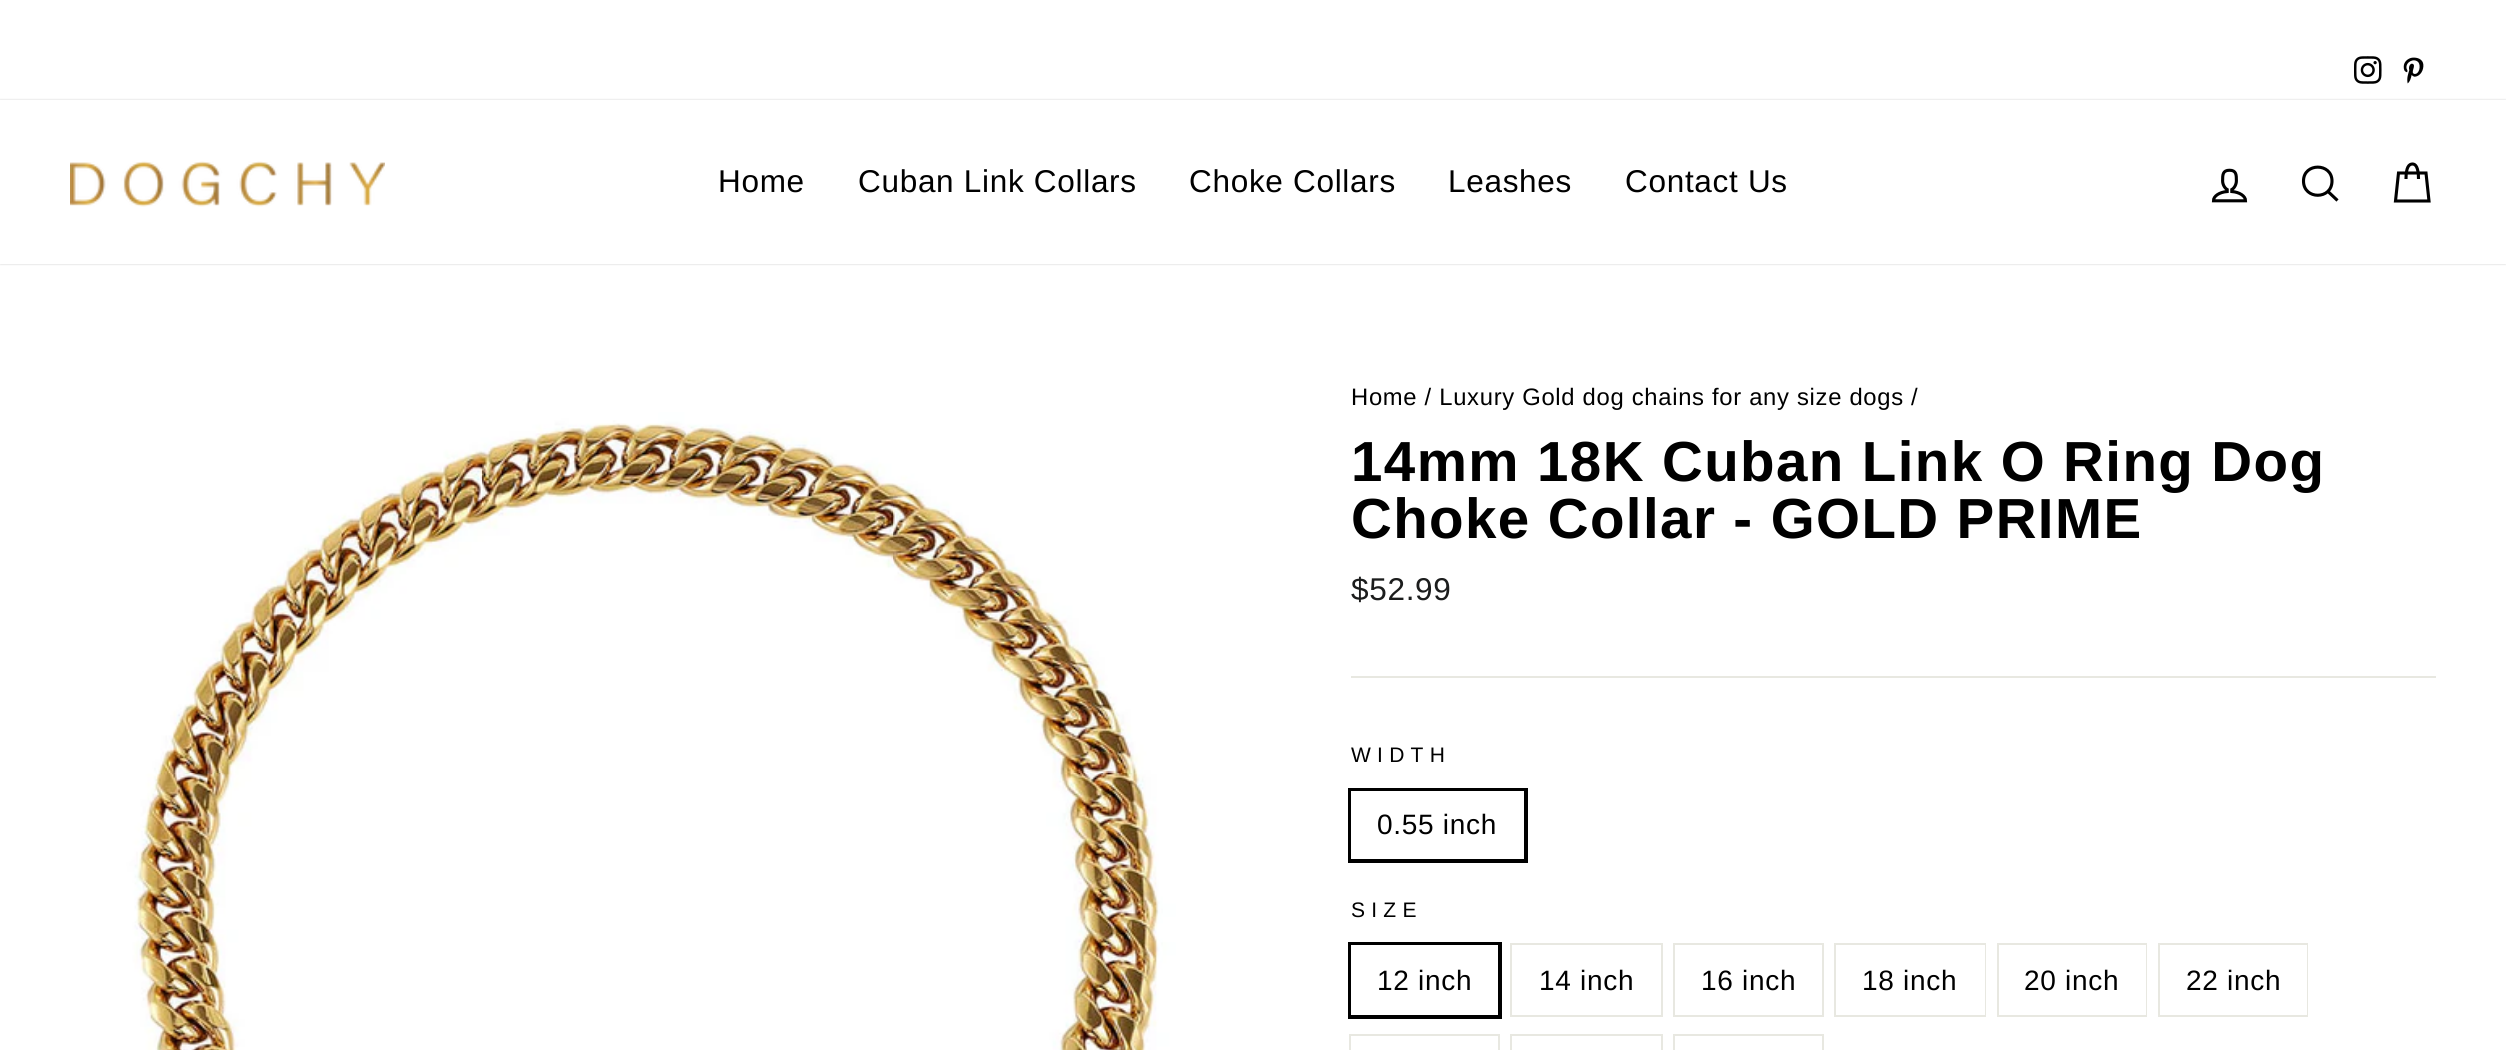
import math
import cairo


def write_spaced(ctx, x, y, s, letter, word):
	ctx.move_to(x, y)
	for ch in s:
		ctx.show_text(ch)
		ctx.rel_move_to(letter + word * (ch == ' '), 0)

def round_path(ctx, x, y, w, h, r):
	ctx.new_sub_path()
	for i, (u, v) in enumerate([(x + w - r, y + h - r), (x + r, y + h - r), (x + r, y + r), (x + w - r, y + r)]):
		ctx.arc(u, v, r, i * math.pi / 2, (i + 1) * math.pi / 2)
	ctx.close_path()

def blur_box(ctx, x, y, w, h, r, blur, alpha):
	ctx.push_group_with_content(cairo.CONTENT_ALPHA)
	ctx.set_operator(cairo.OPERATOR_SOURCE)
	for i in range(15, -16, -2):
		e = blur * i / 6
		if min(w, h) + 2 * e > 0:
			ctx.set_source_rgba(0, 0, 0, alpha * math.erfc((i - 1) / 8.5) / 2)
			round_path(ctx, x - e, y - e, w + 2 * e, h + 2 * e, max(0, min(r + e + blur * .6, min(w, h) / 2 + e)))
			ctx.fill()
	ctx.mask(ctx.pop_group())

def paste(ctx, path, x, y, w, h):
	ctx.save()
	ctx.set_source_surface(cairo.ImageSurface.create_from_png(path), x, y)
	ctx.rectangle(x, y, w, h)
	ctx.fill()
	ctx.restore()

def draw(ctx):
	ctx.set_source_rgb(1, 1, 1)
	ctx.paint()
	paste(ctx, 'media/1.png', 2354, 56, 28, 28)
	paste(ctx, 'media/2.png', 2403, 57, 21, 27)
	ctx.save()
	ctx.set_fill_rule(cairo.FILL_RULE_EVEN_ODD)
	ctx.new_path()
	ctx.move_to(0, 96)
	ctx.line_to(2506, 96)
	ctx.line_to(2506, 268)
	ctx.line_to(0, 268)
	ctx.close_path()
	ctx.move_to(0, 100)
	ctx.line_to(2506, 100)
	ctx.line_to(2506, 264)
	ctx.line_to(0, 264)
	ctx.close_path()
	ctx.clip()
	ctx.set_source_rgb(0, 0, 0)
	blur_box(ctx, 0, 100, 2506, 164, 0, 1, 0.2)
	ctx.restore()
	paste(ctx, 'media/3.png', 70, 161, 315, 46)
	ctx.select_font_face('Arimo')
	ctx.set_font_size(31.5)
	ctx.set_source_rgb(0, 0, 0)
	for x, y, s in [
		(718, 192, 'Home'),
		(858, 192, 'Cuban Link Collars'),
		(1189, 192, 'Choke Collars'),
		(1448, 192, 'Leashes'),
		(1625, 192, 'Contact Us'),
	]:
		write_spaced(ctx, x, y, s, 0.7, 0)
	paste(ctx, 'media/4.png', 2211, 168, 37, 35)
	ctx.new_path()
	ctx.move_to(2332, 181)
	ctx.curve_to(2332, 200, 2303.5, 200, 2303.5, 181)
	ctx.curve_to(2303.5, 162.5, 2332, 162.5, 2332, 181)
	ctx.close_path()
	ctx.move_to(2337.5, 200.5)
	ctx.line_to(2328, 191.5)
	ctx.set_line_width(3.1)
	ctx.stroke()
	ctx.new_path()
	ctx.move_to(2406, 179)
	ctx.curve_to(2406, 167, 2409, 164, 2412.5, 164)
	ctx.curve_to(2415.5, 164, 2418.5, 167, 2418.5, 179)
	ctx.move_to(2398.5, 173)
	ctx.line_to(2426, 173)
	ctx.line_to(2429, 201)
	ctx.line_to(2395.5, 201)
	ctx.close_path()
	ctx.stroke()
	paste(ctx, 'media/5.png', 70, 361, 1164, 689)
	ctx.set_font_size(23.8)
	write_spaced(ctx, 1351, 405, 'Home / Luxury Gold dog chains for any size dogs /', 0.7, 0)
	ctx.select_font_face('Arimo', cairo.FONT_SLANT_NORMAL, cairo.FONT_WEIGHT_BOLD)
	ctx.set_font_size(56.5)
	write_spaced(ctx, 1351, 481, '14mm 18K Cuban Link O Ring Dog', 1.4, 0)
	write_spaced(ctx, 1351, 538, 'Choke Collar - GOLD PRIME', 1.4, 0)
	ctx.select_font_face('Arimo')
	ctx.set_font_size(31.5)
	ctx.set_source_rgb(0.11, 0.114, 0.114)
	write_spaced(ctx, 1351, 600, '$52.99', 0.7, 0)
	ctx.set_source_rgb(0.91, 0.91, 0.882)
	ctx.rectangle(1351, 676, 1085, 2)
	ctx.fill()
	ctx.set_font_size(21)
	ctx.set_source_rgb(0, 0, 0)
	write_spaced(ctx, 1351, 762, 'WIDTH', 6.25, 0)
	ctx.rectangle(1350, 790, 176, 71)
	ctx.set_line_width(4)
	ctx.stroke()
	ctx.set_source_rgb(1, 1, 1)
	ctx.rectangle(1351, 791, 173, 68)
	ctx.fill()
	ctx.set_font_size(28)
	ctx.set_source_rgb(0, 0, 0)
	write_spaced(ctx, 1377, 834, '0.55 inch', 0.7, 0)
	ctx.set_font_size(21)
	write_spaced(ctx, 1351, 917, 'SIZE', 6.25, 0)
	ctx.rectangle(1350, 944, 150, 73)
	ctx.stroke()
	ctx.set_source_rgb(1, 1, 1)
	ctx.rectangle(1351, 945, 147, 70)
	ctx.fill()
	ctx.set_font_size(28)
	ctx.set_source_rgb(0, 0, 0)
	write_spaced(ctx, 1377, 990, '12 inch', 0.7, 0)
	ctx.rectangle(1511, 944, 151, 72)
	ctx.set_source_rgb(0.91, 0.91, 0.882)
	ctx.set_line_width(2)
	ctx.stroke()
	ctx.set_source_rgb(0, 0, 0)
	write_spaced(ctx, 1539, 990, '14 inch', 0.7, 0)
	ctx.rectangle(1674, 944, 149, 72)
	ctx.set_source_rgb(0.91, 0.91, 0.882)
	ctx.stroke()
	ctx.set_source_rgb(0, 0, 0)
	write_spaced(ctx, 1701, 990, '16 inch', 0.7, 0)
	ctx.rectangle(1835, 944, 150, 72)
	ctx.set_source_rgb(0.91, 0.91, 0.882)
	ctx.stroke()
	ctx.set_source_rgb(1, 1, 1)
	ctx.rectangle(1984, 945, 1, 70)
	ctx.fill()
	ctx.set_source_rgb(0, 0, 0)
	write_spaced(ctx, 1862, 990, '18 inch', 0.7, 0)
	ctx.rectangle(1998, 944, 148, 72)
	ctx.set_source_rgb(0.91, 0.91, 0.882)
	ctx.stroke()
	ctx.set_source_rgb(1, 1, 1)
	ctx.rectangle(2145, 945, 1, 70)
	ctx.fill()
	ctx.set_source_rgb(0, 0, 0)
	write_spaced(ctx, 2024, 990, '20 inch', 0.7, 0)
	ctx.rectangle(2159, 944, 148, 72)
	ctx.set_source_rgb(0.91, 0.91, 0.882)
	ctx.stroke()
	ctx.set_source_rgb(1, 1, 1)
	ctx.rectangle(2306, 945, 1, 70)
	ctx.fill()
	ctx.set_source_rgb(0, 0, 0)
	write_spaced(ctx, 2186, 990, '22 inch', 0.7, 0)
	ctx.rectangle(1350, 1035, 149, 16)
	ctx.set_source_rgb(0.91, 0.91, 0.882)
	ctx.stroke()
	ctx.rectangle(1511, 1035, 151, 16)
	ctx.stroke()
	ctx.rectangle(1674, 1035, 149, 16)
	ctx.stroke()


surface = cairo.ImageSurface(cairo.FORMAT_RGB24, 2506, 1050)
ctx = cairo.Context(surface)
options = cairo.FontOptions()
options.set_hint_metrics(cairo.HINT_METRICS_OFF)
options.set_hint_style(cairo.HINT_STYLE_NONE)
ctx.set_font_options(options)
ctx.set_miter_limit(4)
draw(ctx)
surface.write_to_png('image.png')
